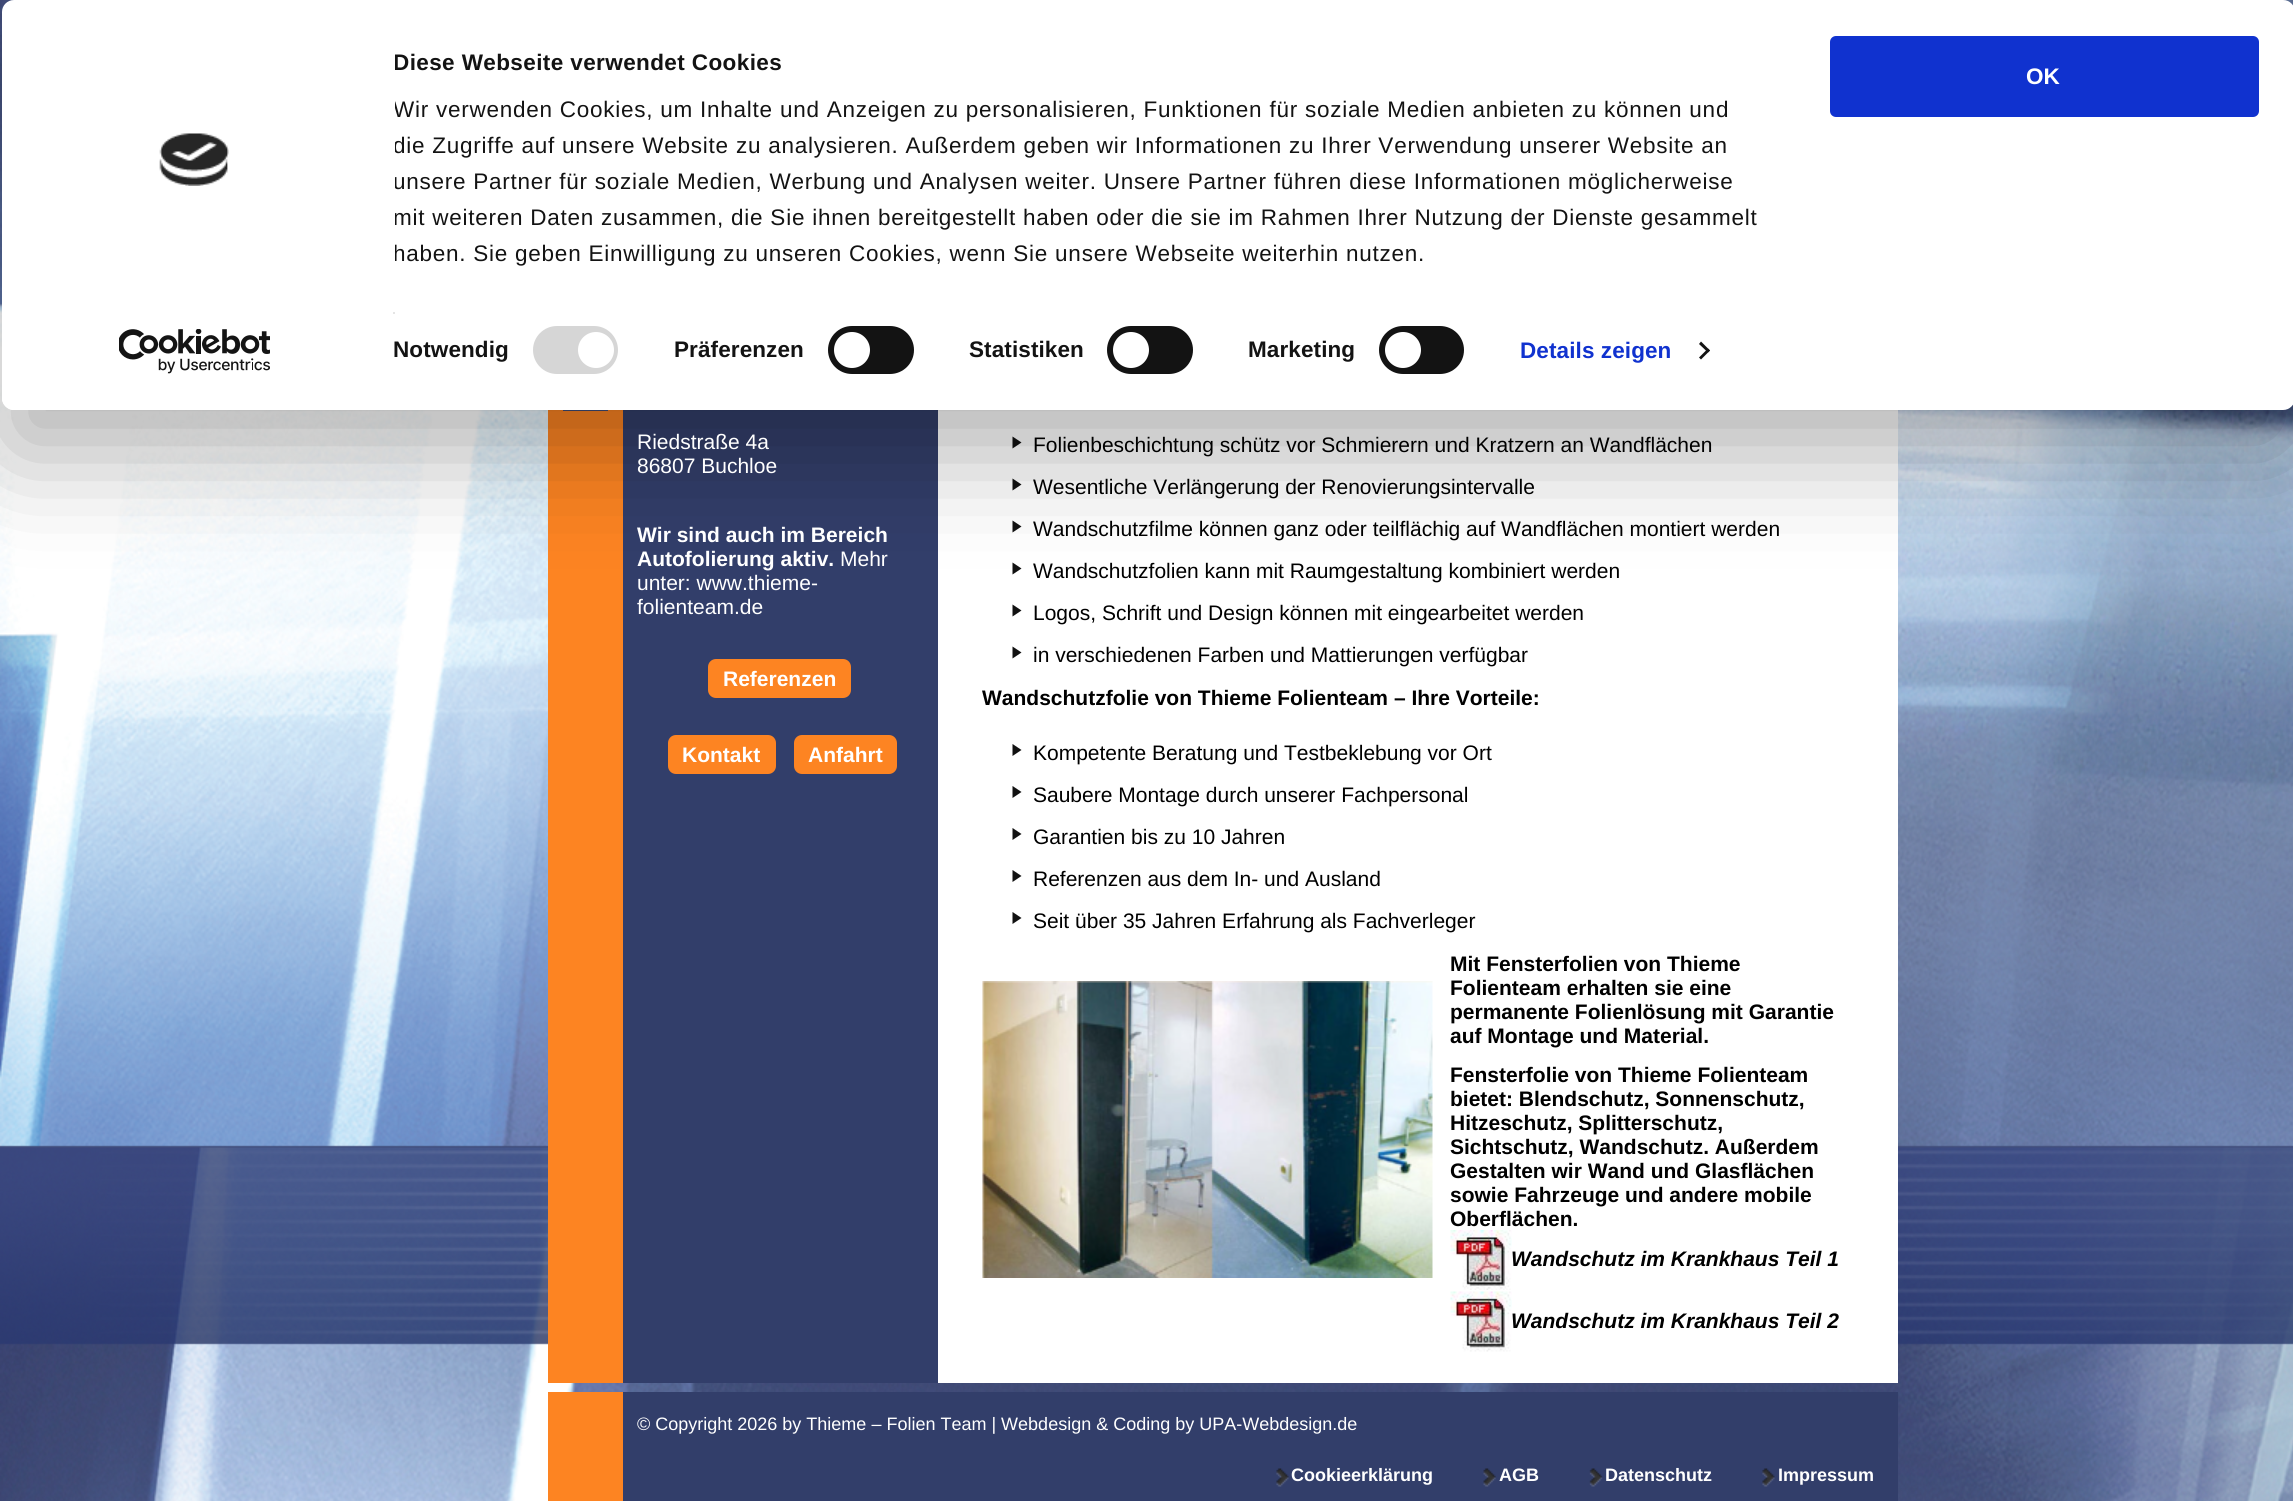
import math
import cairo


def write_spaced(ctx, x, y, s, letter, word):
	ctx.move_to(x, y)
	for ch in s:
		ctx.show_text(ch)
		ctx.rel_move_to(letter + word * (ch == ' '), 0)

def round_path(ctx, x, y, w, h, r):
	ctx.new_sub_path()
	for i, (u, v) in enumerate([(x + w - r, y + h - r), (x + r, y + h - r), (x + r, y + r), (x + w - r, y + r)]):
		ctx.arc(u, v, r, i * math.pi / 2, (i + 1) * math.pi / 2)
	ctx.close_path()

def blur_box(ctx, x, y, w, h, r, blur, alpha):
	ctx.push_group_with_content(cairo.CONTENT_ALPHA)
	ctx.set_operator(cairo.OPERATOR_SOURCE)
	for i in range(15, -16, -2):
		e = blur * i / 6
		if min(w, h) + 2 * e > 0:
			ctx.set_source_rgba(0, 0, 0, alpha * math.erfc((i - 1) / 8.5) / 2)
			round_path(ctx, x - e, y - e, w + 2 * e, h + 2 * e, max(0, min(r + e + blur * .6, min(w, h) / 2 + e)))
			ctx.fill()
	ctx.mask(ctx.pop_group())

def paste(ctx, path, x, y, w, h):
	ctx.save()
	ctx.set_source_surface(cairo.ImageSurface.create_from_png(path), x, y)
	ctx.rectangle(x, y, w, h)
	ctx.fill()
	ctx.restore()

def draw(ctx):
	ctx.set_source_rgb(1, 1, 1)
	ctx.paint()
	paste(ctx, 'media/1.png', 0, 0, 2293, 1501)
	ctx.set_source_rgb(0.196, 0.243, 0.416)
	ctx.rectangle(623, 410, 315, 973)
	ctx.fill()
	ctx.set_source_rgb(0.992, 0.518, 0.133)
	ctx.rectangle(548, 410, 75, 973)
	ctx.fill()
	gradient = cairo.LinearGradient(585, 366, 585, 411)
	gradient.add_color_stop_rgba(0, 0.447, 0.561, 0.706, 1)
	gradient.add_color_stop_rgba(1, 0.251, 0.302, 0.471, 1)
	ctx.set_source(gradient)
	ctx.rectangle(563, 410, 45, 1)
	ctx.fill()
	ctx.set_source_rgb(1, 1, 1)
	ctx.rectangle(938, 410, 960, 973)
	ctx.fill()
	ctx.set_source_rgb(0.067, 0.067, 0.067)
	ctx.new_path()
	ctx.move_to(1012.5, 448.5)
	ctx.line_to(1012.5, 436.5)
	ctx.line_to(1021.5, 442.5)
	ctx.close_path()
	ctx.move_to(1012.5, 490.5)
	ctx.line_to(1012.5, 478.5)
	ctx.line_to(1021.5, 484.5)
	ctx.close_path()
	ctx.fill()
	ctx.new_path()
	ctx.move_to(1012.5, 532.5)
	ctx.line_to(1012.5, 520.5)
	ctx.line_to(1021.5, 526.5)
	ctx.close_path()
	ctx.move_to(1012.5, 574.5)
	ctx.line_to(1012.5, 562.5)
	ctx.line_to(1021.5, 568.5)
	ctx.close_path()
	ctx.fill()
	ctx.new_path()
	ctx.move_to(1012.5, 616.5)
	ctx.line_to(1012.5, 604.5)
	ctx.line_to(1021.5, 610.5)
	ctx.close_path()
	ctx.move_to(1012.5, 658.5)
	ctx.line_to(1012.5, 646.5)
	ctx.line_to(1021.5, 652.5)
	ctx.close_path()
	ctx.fill()
	ctx.save()
	ctx.set_fill_rule(cairo.FILL_RULE_EVEN_ODD)
	ctx.new_path()
	ctx.move_to(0, 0)
	ctx.line_to(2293, 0)
	ctx.line_to(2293, 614)
	ctx.line_to(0, 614)
	ctx.close_path()
	ctx.move_to(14, 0)
	ctx.line_to(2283, 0)
	ctx.curve_to(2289.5, 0, 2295, 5.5, 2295, 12)
	ctx.line_to(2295, 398)
	ctx.curve_to(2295, 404.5, 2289.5, 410, 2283, 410)
	ctx.line_to(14, 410)
	ctx.curve_to(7.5, 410, 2, 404.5, 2, 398)
	ctx.line_to(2, 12)
	ctx.curve_to(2, 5.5, 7.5, 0, 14, 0)
	ctx.close_path()
	ctx.clip()
	ctx.set_source_rgb(0, 0, 0)
	blur_box(ctx, 2, 45, 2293, 410, 12, 52.5, 0.3)
	ctx.restore()
	ctx.set_source_rgb(1, 1, 1)
	round_path(ctx, 2, 0, 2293, 410, 12)
	ctx.fill()
	ctx.save()
	ctx.rectangle(395, 45, 1392, 227)
	ctx.clip()
	ctx.select_font_face('Liberation Sans', cairo.FONT_SLANT_NORMAL, cairo.FONT_WEIGHT_BOLD)
	ctx.set_font_size(22.5)
	ctx.set_source_rgb(0.078, 0.078, 0.078)
	write_spaced(ctx, 393, 70, 'Diese Webseite verwendet Cookies', 0.4, 0)
	ctx.select_font_face('Liberation Sans')
	for x, y, s in [
		(393, 117, 'Wir verwenden Cookies, um Inhalte und Anzeigen zu personalisieren, Funktionen für soziale Medien anbieten zu können und'),
		(393, 153, 'die Zugriffe auf unsere Website zu analysieren. Außerdem geben wir Informationen zu Ihrer Verwendung unserer Website an'),
		(393, 189, 'unsere Partner für soziale Medien, Werbung und Analysen weiter. Unsere Partner führen diese Informationen möglicherweise'),
		(393, 225, 'mit weiteren Daten zusammen, die Sie ihnen bereitgestellt haben oder die sie im Rahmen Ihrer Nutzung der Dienste gesammelt'),
		(393, 261, 'haben. Sie geben Einwilligung zu unseren Cookies, wenn Sie unsere Webseite weiterhin nutzen.'),
	]:
		write_spaced(ctx, x, y, s, 0.75, 0)
	ctx.restore()
	ctx.set_source_rgb(0.898, 0.898, 0.898)
	ctx.rectangle(393, 312, 2, 2)
	ctx.fill()
	ctx.select_font_face('Liberation Sans', cairo.FONT_SLANT_NORMAL, cairo.FONT_WEIGHT_BOLD)
	ctx.set_font_size(22.5)
	ctx.set_source_rgb(0.078, 0.078, 0.078)
	write_spaced(ctx, 393, 357, 'Notwendig', 0.1, 0)
	ctx.set_source_rgb(0.839, 0.839, 0.839)
	round_path(ctx, 533, 326, 85, 48, 24)
	ctx.fill()
	ctx.set_source_rgb(1, 1, 1)
	ctx.arc(596, 350, 18, 0, 2 * math.pi)
	ctx.fill()
	ctx.set_source_rgb(0.078, 0.078, 0.078)
	write_spaced(ctx, 674, 357, 'Präferenzen', 0.1, 0)
	round_path(ctx, 828, 326, 86, 48, 24)
	ctx.fill()
	ctx.set_source_rgb(1, 1, 1)
	ctx.arc(852, 350, 18, 0, 2 * math.pi)
	ctx.fill()
	ctx.set_source_rgb(0.078, 0.078, 0.078)
	write_spaced(ctx, 969, 357, 'Statistiken', 0.1, 0)
	round_path(ctx, 1107, 326, 86, 48, 24)
	ctx.fill()
	ctx.set_source_rgb(1, 1, 1)
	ctx.arc(1131, 350, 18, 0, 2 * math.pi)
	ctx.fill()
	ctx.set_source_rgb(0.078, 0.078, 0.078)
	write_spaced(ctx, 1248, 357, 'Marketing', 0.1, 0)
	round_path(ctx, 1379, 326, 85, 48, 24)
	ctx.fill()
	ctx.set_source_rgb(1, 1, 1)
	ctx.arc(1403, 350, 18, 0, 2 * math.pi)
	ctx.fill()
	ctx.set_source_rgb(0.063, 0.196, 0.812)
	write_spaced(ctx, 1520, 358, 'Details zeigen', 0.1, 0)
	ctx.set_source_rgb(0.078, 0.078, 0.078)
	ctx.new_path()
	ctx.move_to(1701, 341.5)
	ctx.line_to(1710, 350.5)
	ctx.line_to(1708, 352.5)
	ctx.line_to(1699, 344)
	ctx.close_path()
	ctx.fill()
	ctx.new_path()
	ctx.move_to(1708, 348.5)
	ctx.line_to(1710, 350.5)
	ctx.line_to(1701, 359.5)
	ctx.line_to(1699, 357.5)
	ctx.close_path()
	ctx.fill()
	ctx.set_source_rgb(0.063, 0.196, 0.812)
	round_path(ctx, 1831.5, 37.5, 426, 78, 4.5)
	ctx.fill_preserve()
	ctx.set_line_width(3)
	ctx.stroke()
	ctx.set_source_rgb(1, 1, 1)
	ctx.move_to(2026, 84)
	ctx.show_text('OK')
	paste(ctx, 'media/2.png', 159, 133, 70, 53)
	paste(ctx, 'media/3.png', 119, 329, 151, 45)
	ctx.select_font_face('Liberation Sans')
	ctx.set_font_size(21)
	ctx.move_to(637, 449)
	ctx.show_text('Riedstraße 4a')
	ctx.move_to(637, 473)
	ctx.show_text('86807 Buchloe')
	ctx.select_font_face('Liberation Sans', cairo.FONT_SLANT_NORMAL, cairo.FONT_WEIGHT_BOLD)
	ctx.move_to(637, 542)
	ctx.show_text('Wir sind auch im Bereich')
	ctx.move_to(637, 566)
	ctx.show_text('Autofolierung aktiv.')
	ctx.select_font_face('Liberation Sans')
	for x, y, s in [
		(840, 566, 'Mehr'),
		(637, 590, 'unter: www.thieme-'),
		(637, 614, 'folienteam.de'),
	]:
		ctx.move_to(x, y)
		ctx.show_text(s)
	ctx.set_source_rgb(0.992, 0.518, 0.133)
	round_path(ctx, 708, 659, 143, 39, 8)
	ctx.fill()
	ctx.select_font_face('Liberation Sans', cairo.FONT_SLANT_NORMAL, cairo.FONT_WEIGHT_BOLD)
	ctx.set_source_rgb(1, 1, 1)
	ctx.move_to(723, 686)
	ctx.show_text('Referenzen')
	ctx.set_source_rgb(0.992, 0.518, 0.133)
	round_path(ctx, 668, 735, 108, 39, 8)
	ctx.fill()
	ctx.set_source_rgb(1, 1, 1)
	ctx.move_to(682, 762)
	ctx.show_text('Kontakt')
	ctx.set_source_rgb(0.992, 0.518, 0.133)
	round_path(ctx, 794, 735, 103, 39, 8)
	ctx.fill()
	ctx.set_source_rgb(1, 1, 1)
	ctx.move_to(808, 762)
	ctx.show_text('Anfahrt')
	ctx.select_font_face('Liberation Sans')
	ctx.set_source_rgb(0, 0, 0)
	for x, y, s in [
		(1033, 452, 'Folienbeschichtung schütz vor Schmierern und Kratzern an Wandflächen'),
		(1033, 494, 'Wesentliche Verlängerung der Renovierungsintervalle'),
		(1033, 536, 'Wandschutzfilme können ganz oder teilflächig auf Wandflächen montiert werden'),
		(1033, 578, 'Wandschutzfolien kann mit Raumgestaltung kombiniert werden'),
		(1033, 620, 'Logos, Schrift und Design können mit eingearbeitet werden'),
		(1033, 662, 'in verschiedenen Farben und Mattierungen verfügbar'),
	]:
		ctx.move_to(x, y)
		ctx.show_text(s)
	ctx.select_font_face('Liberation Sans', cairo.FONT_SLANT_NORMAL, cairo.FONT_WEIGHT_BOLD)
	ctx.move_to(982, 705)
	ctx.show_text('Wandschutzfolie von Thieme Folienteam – Ihre Vorteile:')
	ctx.set_source_rgb(0.067, 0.067, 0.067)
	ctx.new_path()
	ctx.move_to(1012.5, 756)
	ctx.line_to(1012.5, 744)
	ctx.line_to(1021.5, 750)
	ctx.close_path()
	ctx.move_to(1012.5, 798)
	ctx.line_to(1012.5, 786)
	ctx.line_to(1021.5, 792)
	ctx.close_path()
	ctx.fill()
	ctx.select_font_face('Liberation Sans')
	ctx.set_source_rgb(0, 0, 0)
	ctx.move_to(1033, 760)
	ctx.show_text('Kompetente Beratung und Testbeklebung vor Ort')
	ctx.move_to(1033, 802)
	ctx.show_text('Saubere Montage durch unserer Fachpersonal')
	ctx.set_source_rgb(0.067, 0.067, 0.067)
	ctx.new_path()
	ctx.move_to(1012.5, 840)
	ctx.line_to(1012.5, 828)
	ctx.line_to(1021.5, 834)
	ctx.close_path()
	ctx.move_to(1012.5, 882)
	ctx.line_to(1012.5, 870)
	ctx.line_to(1021.5, 876)
	ctx.close_path()
	ctx.fill()
	ctx.set_source_rgb(0, 0, 0)
	ctx.move_to(1033, 844)
	ctx.show_text('Garantien bis zu 10 Jahren')
	ctx.move_to(1033, 886)
	ctx.show_text('Referenzen aus dem In- und Ausland')
	ctx.set_source_rgb(0.067, 0.067, 0.067)
	ctx.new_path()
	ctx.move_to(1012.5, 924)
	ctx.line_to(1012.5, 912)
	ctx.line_to(1021.5, 918)
	ctx.close_path()
	ctx.fill()
	ctx.set_source_rgb(0, 0, 0)
	ctx.move_to(1033, 928)
	ctx.show_text('Seit über 35 Jahren Erfahrung als Fachverleger')
	ctx.select_font_face('Liberation Sans', cairo.FONT_SLANT_NORMAL, cairo.FONT_WEIGHT_BOLD)
	ctx.move_to(1450, 971)
	ctx.show_text('Mit Fensterfolien von Thieme')
	paste(ctx, 'media/4.png', 982, 981, 451, 297)
	for x, y, s in [
		(1450, 995, 'Folienteam erhalten sie eine'),
		(1450, 1019, 'permanente Folienlösung mit Garantie'),
		(1450, 1043, 'auf Montage und Material.'),
		(1450, 1082, 'Fensterfolie von Thieme Folienteam'),
		(1450, 1106, 'bietet: Blendschutz, Sonnenschutz,'),
		(1450, 1130, 'Hitzeschutz, Splitterschutz,'),
		(1450, 1154, 'Sichtschutz, Wandschutz. Außerdem'),
		(1450, 1178, 'Gestalten wir Wand und Glasflächen'),
		(1450, 1202, 'sowie Fahrzeuge und andere mobile'),
		(1450, 1226, 'Oberflächen.'),
	]:
		ctx.move_to(x, y)
		ctx.show_text(s)
	paste(ctx, 'media/5.png', 1450, 1230, 62, 60)
	ctx.select_font_face('Liberation Sans', cairo.FONT_SLANT_ITALIC, cairo.FONT_WEIGHT_BOLD)
	ctx.move_to(1511, 1266)
	ctx.show_text('Wandschutz im Krankhaus Teil 1')
	paste(ctx, 'media/6.png', 1450, 1291, 62, 61)
	ctx.move_to(1511, 1328)
	ctx.show_text('Wandschutz im Krankhaus Teil 2')
	ctx.set_source_rgb(0.196, 0.243, 0.416)
	ctx.rectangle(623, 1392, 1275, 109)
	ctx.fill()
	ctx.set_source_rgb(0.992, 0.518, 0.133)
	ctx.rectangle(548, 1392, 75, 109)
	ctx.fill()
	ctx.select_font_face('Liberation Sans')
	ctx.set_font_size(18)
	ctx.set_source_rgb(1, 1, 1)
	ctx.move_to(637, 1430)
	ctx.show_text('© Copyright 2026 by Thieme – Folien Team | Webdesign & Coding by UPA-Webdesign.de')
	paste(ctx, 'media/7.png', 1276, 1468, 13, 19)
	ctx.select_font_face('Liberation Sans', cairo.FONT_SLANT_NORMAL, cairo.FONT_WEIGHT_BOLD)
	ctx.move_to(1291, 1481)
	ctx.show_text('Cookieerklärung')
	paste(ctx, 'media/8.png', 1483, 1468, 13, 19)
	ctx.move_to(1499, 1481)
	ctx.show_text('AGB')
	paste(ctx, 'media/9.png', 1589, 1468, 14, 19)
	ctx.move_to(1605, 1481)
	ctx.show_text('Datenschutz')
	paste(ctx, 'media/7.png', 1762, 1468, 13, 19)
	ctx.move_to(1778, 1481)
	ctx.show_text('Impressum')


surface = cairo.ImageSurface(cairo.FORMAT_RGB24, 2293, 1501)
ctx = cairo.Context(surface)
options = cairo.FontOptions()
options.set_hint_metrics(cairo.HINT_METRICS_OFF)
options.set_hint_style(cairo.HINT_STYLE_NONE)
ctx.set_font_options(options)
ctx.set_miter_limit(4)
draw(ctx)
surface.write_to_png('image.png')
